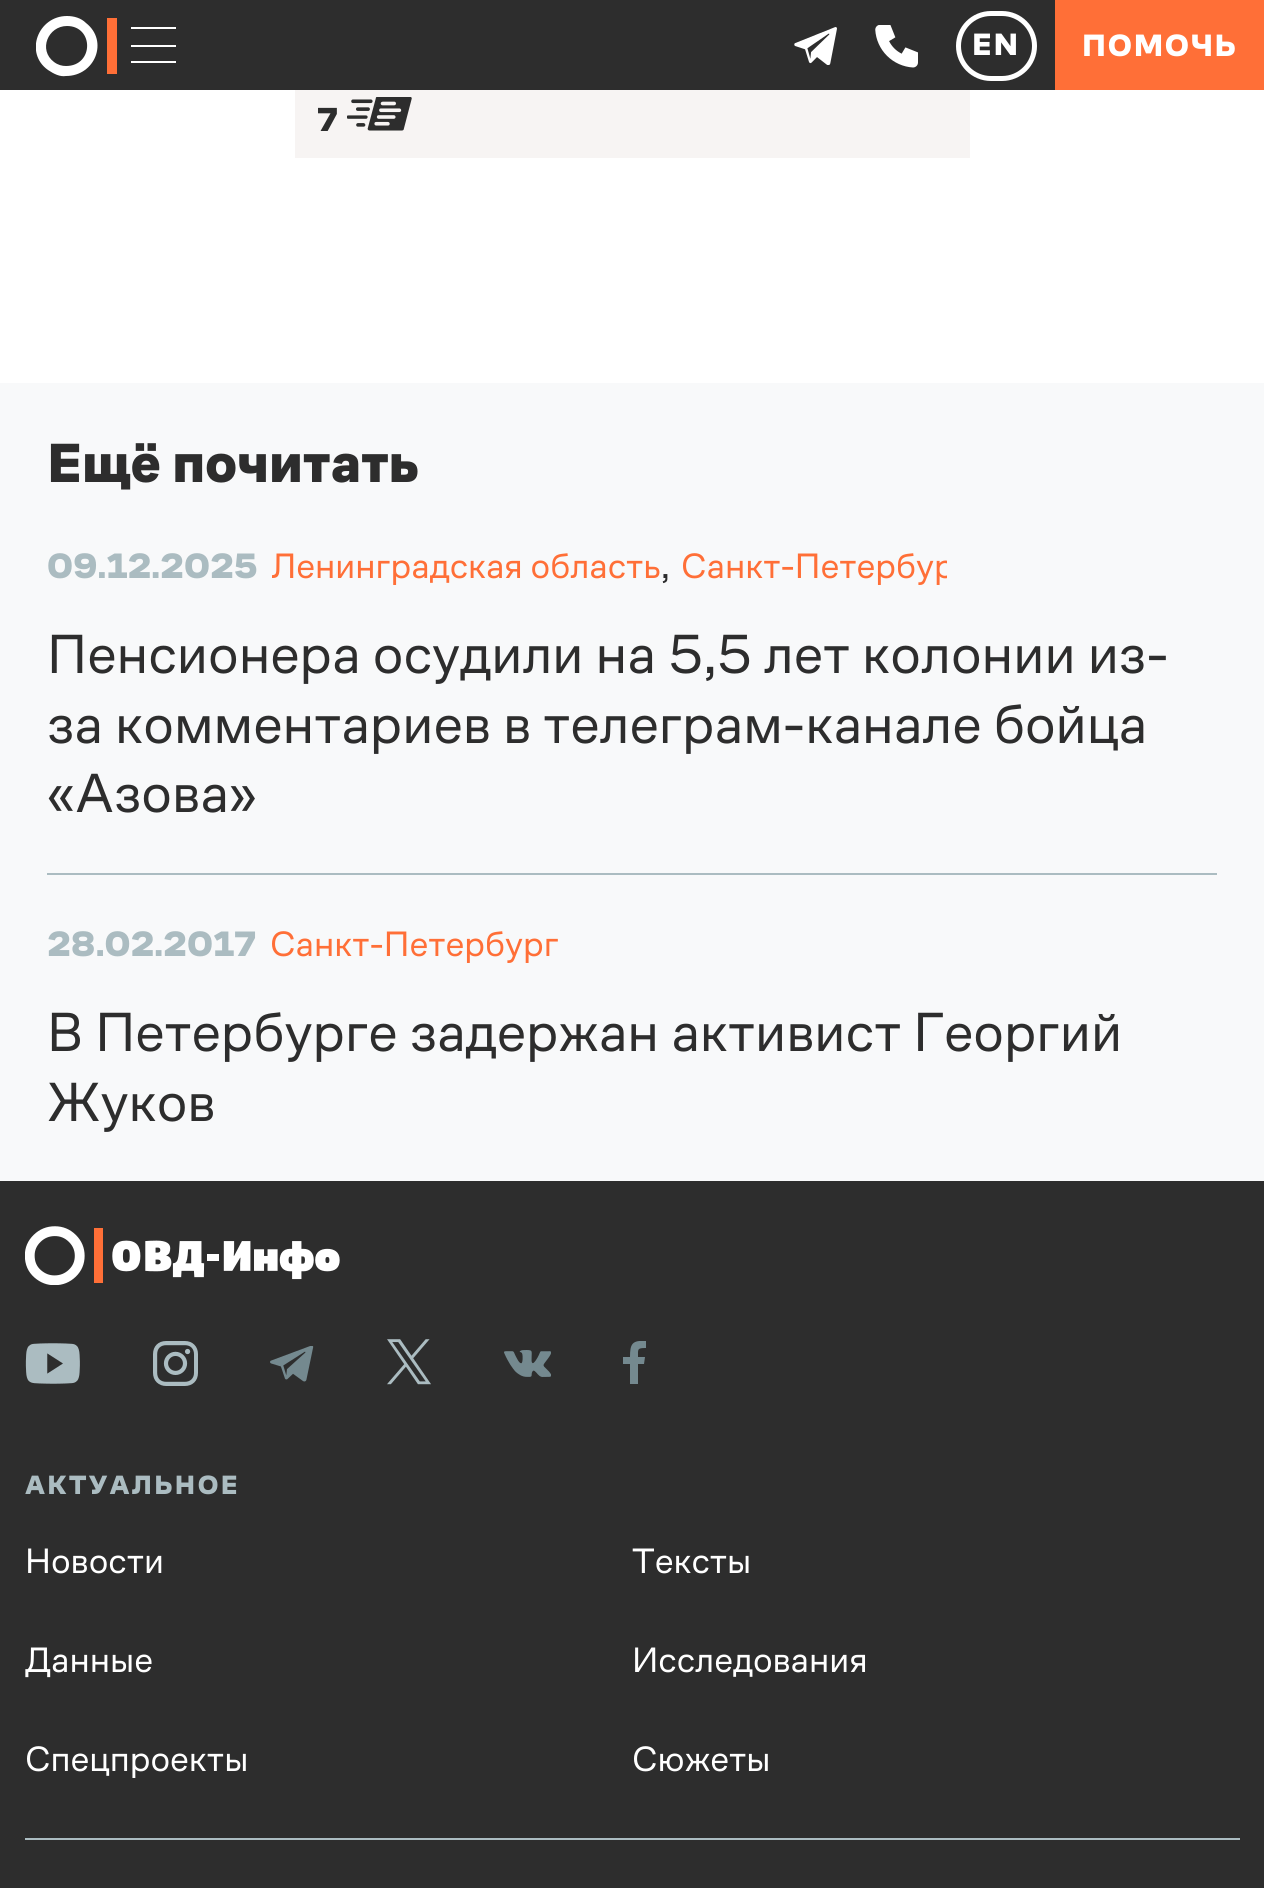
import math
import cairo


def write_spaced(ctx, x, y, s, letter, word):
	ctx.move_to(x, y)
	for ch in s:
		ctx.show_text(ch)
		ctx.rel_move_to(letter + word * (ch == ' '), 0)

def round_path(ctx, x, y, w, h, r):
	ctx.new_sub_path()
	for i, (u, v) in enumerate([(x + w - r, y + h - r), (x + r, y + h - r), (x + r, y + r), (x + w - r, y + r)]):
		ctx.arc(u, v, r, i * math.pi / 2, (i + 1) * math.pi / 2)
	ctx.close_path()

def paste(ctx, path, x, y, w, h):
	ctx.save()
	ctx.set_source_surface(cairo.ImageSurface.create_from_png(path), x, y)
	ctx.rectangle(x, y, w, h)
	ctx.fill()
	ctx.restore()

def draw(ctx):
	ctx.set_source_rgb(1, 1, 1)
	ctx.paint()
	ctx.set_source_rgb(0.176, 0.176, 0.176)
	ctx.rectangle(0, 0, 1055, 90)
	ctx.fill()
	ctx.set_source_rgb(1, 0.435, 0.216)
	ctx.rectangle(107, 18, 10, 56)
	ctx.fill()
	ctx.save()
	ctx.rectangle(36, 16, 81, 61)
	ctx.clip()
	ctx.set_source_rgb(1, 1, 1)
	ctx.new_path()
	ctx.move_to(67, 26)
	ctx.curve_to(94, 26, 94, 66, 66, 66)
	ctx.curve_to(62, 66, 58, 65, 54, 62)
	ctx.curve_to(38, 50, 48, 26, 67, 26)
	ctx.move_to(67, 16)
	ctx.curve_to(38, 16, 24, 53, 48, 70)
	ctx.curve_to(54, 74, 60, 77, 66, 76)
	ctx.curve_to(95, 76, 109, 41, 86, 23)
	ctx.curve_to(81, 18, 74, 16, 67, 16)
	ctx.close_path()
	ctx.fill()
	ctx.restore()
	ctx.set_source_rgb(1, 1, 1)
	ctx.rectangle(131, 27, 45, 2)
	ctx.rectangle(131, 45, 45, 2)
	ctx.rectangle(131, 61, 45, 2)
	ctx.fill()
	paste(ctx, 'media/1.png', 794, 27, 43, 38)
	paste(ctx, 'media/2.png', 875, 25, 43, 43)
	round_path(ctx, 958.5, 13.5, 76, 65, 32.5)
	ctx.set_line_width(5)
	ctx.stroke()
	ctx.select_font_face('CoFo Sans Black')
	ctx.set_font_size(31.5)
	write_spaced(ctx, 972, 55, 'EN', 2, 0)
	ctx.set_source_rgb(1, 0.435, 0.216)
	ctx.rectangle(1055, 0, 209, 90)
	ctx.fill()
	ctx.set_source_rgb(1, 1, 1)
	write_spaced(ctx, 1082, 56, 'ПОМОЧЬ', 1.5, 0)
	ctx.set_source_rgb(0.965, 0.957, 0.953)
	ctx.rectangle(295, 90, 675, 68)
	ctx.fill()
	ctx.set_font_size(34)
	ctx.set_source_rgb(0.176, 0.176, 0.176)
	ctx.move_to(317, 131)
	ctx.show_text('7')
	paste(ctx, 'media/3.png', 347, 97, 65, 34)
	ctx.set_source_rgb(0.969, 0.973, 0.98)
	ctx.rectangle(0, 383, 1264, 798)
	ctx.fill()
	ctx.set_font_size(56.25)
	ctx.set_source_rgb(0.176, 0.176, 0.176)
	ctx.move_to(47, 482)
	ctx.show_text('Ещё почитать')
	ctx.set_font_size(36)
	ctx.set_source_rgb(0.671, 0.737, 0.757)
	ctx.move_to(47, 578)
	ctx.show_text('09.12.2025')
	ctx.save()
	ctx.rectangle(272, 542, 399, 48)
	ctx.clip()
	ctx.select_font_face('CoFo Sans')
	ctx.set_source_rgb(1, 0.435, 0.216)
	ctx.move_to(271, 578)
	ctx.show_text('Ленинградская область')
	ctx.restore()
	ctx.select_font_face('CoFo Sans')
	ctx.set_source_rgb(0.176, 0.176, 0.176)
	ctx.move_to(661, 578)
	ctx.show_text(',')
	ctx.save()
	ctx.rectangle(682, 542, 265, 48)
	ctx.clip()
	ctx.set_source_rgb(1, 0.435, 0.216)
	ctx.move_to(681, 578)
	ctx.show_text('Санкт-Петербур')
	ctx.restore()
	ctx.set_font_size(56.25)
	for x, y, s in [
		(47, 673, 'Пенсионера осудили на 5,5 лет колонии из-'),
		(47, 743, 'за комментариев в телеграм-канале бойца'),
		(47, 812, '«Азова»'),
	]:
		ctx.move_to(x, y)
		ctx.show_text(s)
	ctx.set_source_rgb(0.671, 0.737, 0.757)
	ctx.rectangle(47, 873, 1170, 2)
	ctx.fill()
	ctx.select_font_face('CoFo Sans Black')
	ctx.set_font_size(36)
	ctx.move_to(47, 956)
	ctx.show_text('28.02.2017')
	ctx.select_font_face('CoFo Sans')
	ctx.set_source_rgb(1, 0.435, 0.216)
	ctx.move_to(270, 956)
	ctx.show_text('Санкт-Петербург')
	ctx.set_font_size(56.25)
	ctx.set_source_rgb(0.176, 0.176, 0.176)
	ctx.move_to(47, 1051)
	ctx.show_text('В Петербурге задержан активист Георгий')
	ctx.move_to(47, 1121)
	ctx.show_text('Жуков')
	ctx.rectangle(0, 1181, 1264, 707)
	ctx.fill()
	paste(ctx, 'media/4.png', 25, 1226, 315, 59)
	paste(ctx, 'media/5.png', 25, 1343, 55, 41)
	paste(ctx, 'media/6.png', 153, 1341, 45, 45)
	paste(ctx, 'media/7.png', 270, 1346, 44, 36)
	paste(ctx, 'media/8.png', 387, 1339, 44, 46)
	paste(ctx, 'media/9.png', 504, 1350, 47, 27)
	ctx.save()
	ctx.rectangle(623, 1341, 23, 43)
	ctx.clip()
	ctx.set_source_rgb(0.455, 0.537, 0.561)
	ctx.new_path()
	ctx.move_to(638, 1384)
	ctx.line_to(638, 1364)
	ctx.line_to(644, 1364)
	ctx.line_to(645, 1357)
	ctx.line_to(638, 1357)
	ctx.curve_to(638, 1349, 637, 1348, 646, 1348)
	ctx.line_to(646, 1341)
	ctx.curve_to(632, 1340, 630, 1344, 630, 1357)
	ctx.line_to(623, 1357)
	ctx.line_to(623, 1364)
	ctx.line_to(630, 1364)
	ctx.line_to(630, 1384)
	ctx.close_path()
	ctx.fill()
	ctx.restore()
	ctx.set_source_rgb(0.671, 0.737, 0.757)
	ctx.rectangle(25, 1838, 1215, 2)
	ctx.fill()
	ctx.select_font_face('CoFo Sans Black')
	ctx.set_font_size(27)
	write_spaced(ctx, 25, 1494, 'АКТУАЛЬНОЕ', 2.25, 0)
	ctx.select_font_face('CoFo Sans')
	ctx.set_font_size(36)
	ctx.set_source_rgb(1, 1, 1)
	for x, y, s in [
		(25, 1573, 'Новости'),
		(632, 1573, 'Тексты'),
		(25, 1672, 'Данные'),
		(632, 1672, 'Исследования'),
		(25, 1771, 'Спецпроекты'),
		(632, 1771, 'Сюжеты'),
	]:
		ctx.move_to(x, y)
		ctx.show_text(s)


surface = cairo.ImageSurface(cairo.FORMAT_RGB24, 1264, 1888)
ctx = cairo.Context(surface)
options = cairo.FontOptions()
options.set_hint_metrics(cairo.HINT_METRICS_OFF)
options.set_hint_style(cairo.HINT_STYLE_NONE)
ctx.set_font_options(options)
ctx.set_miter_limit(4)
draw(ctx)
surface.write_to_png('image.png')
